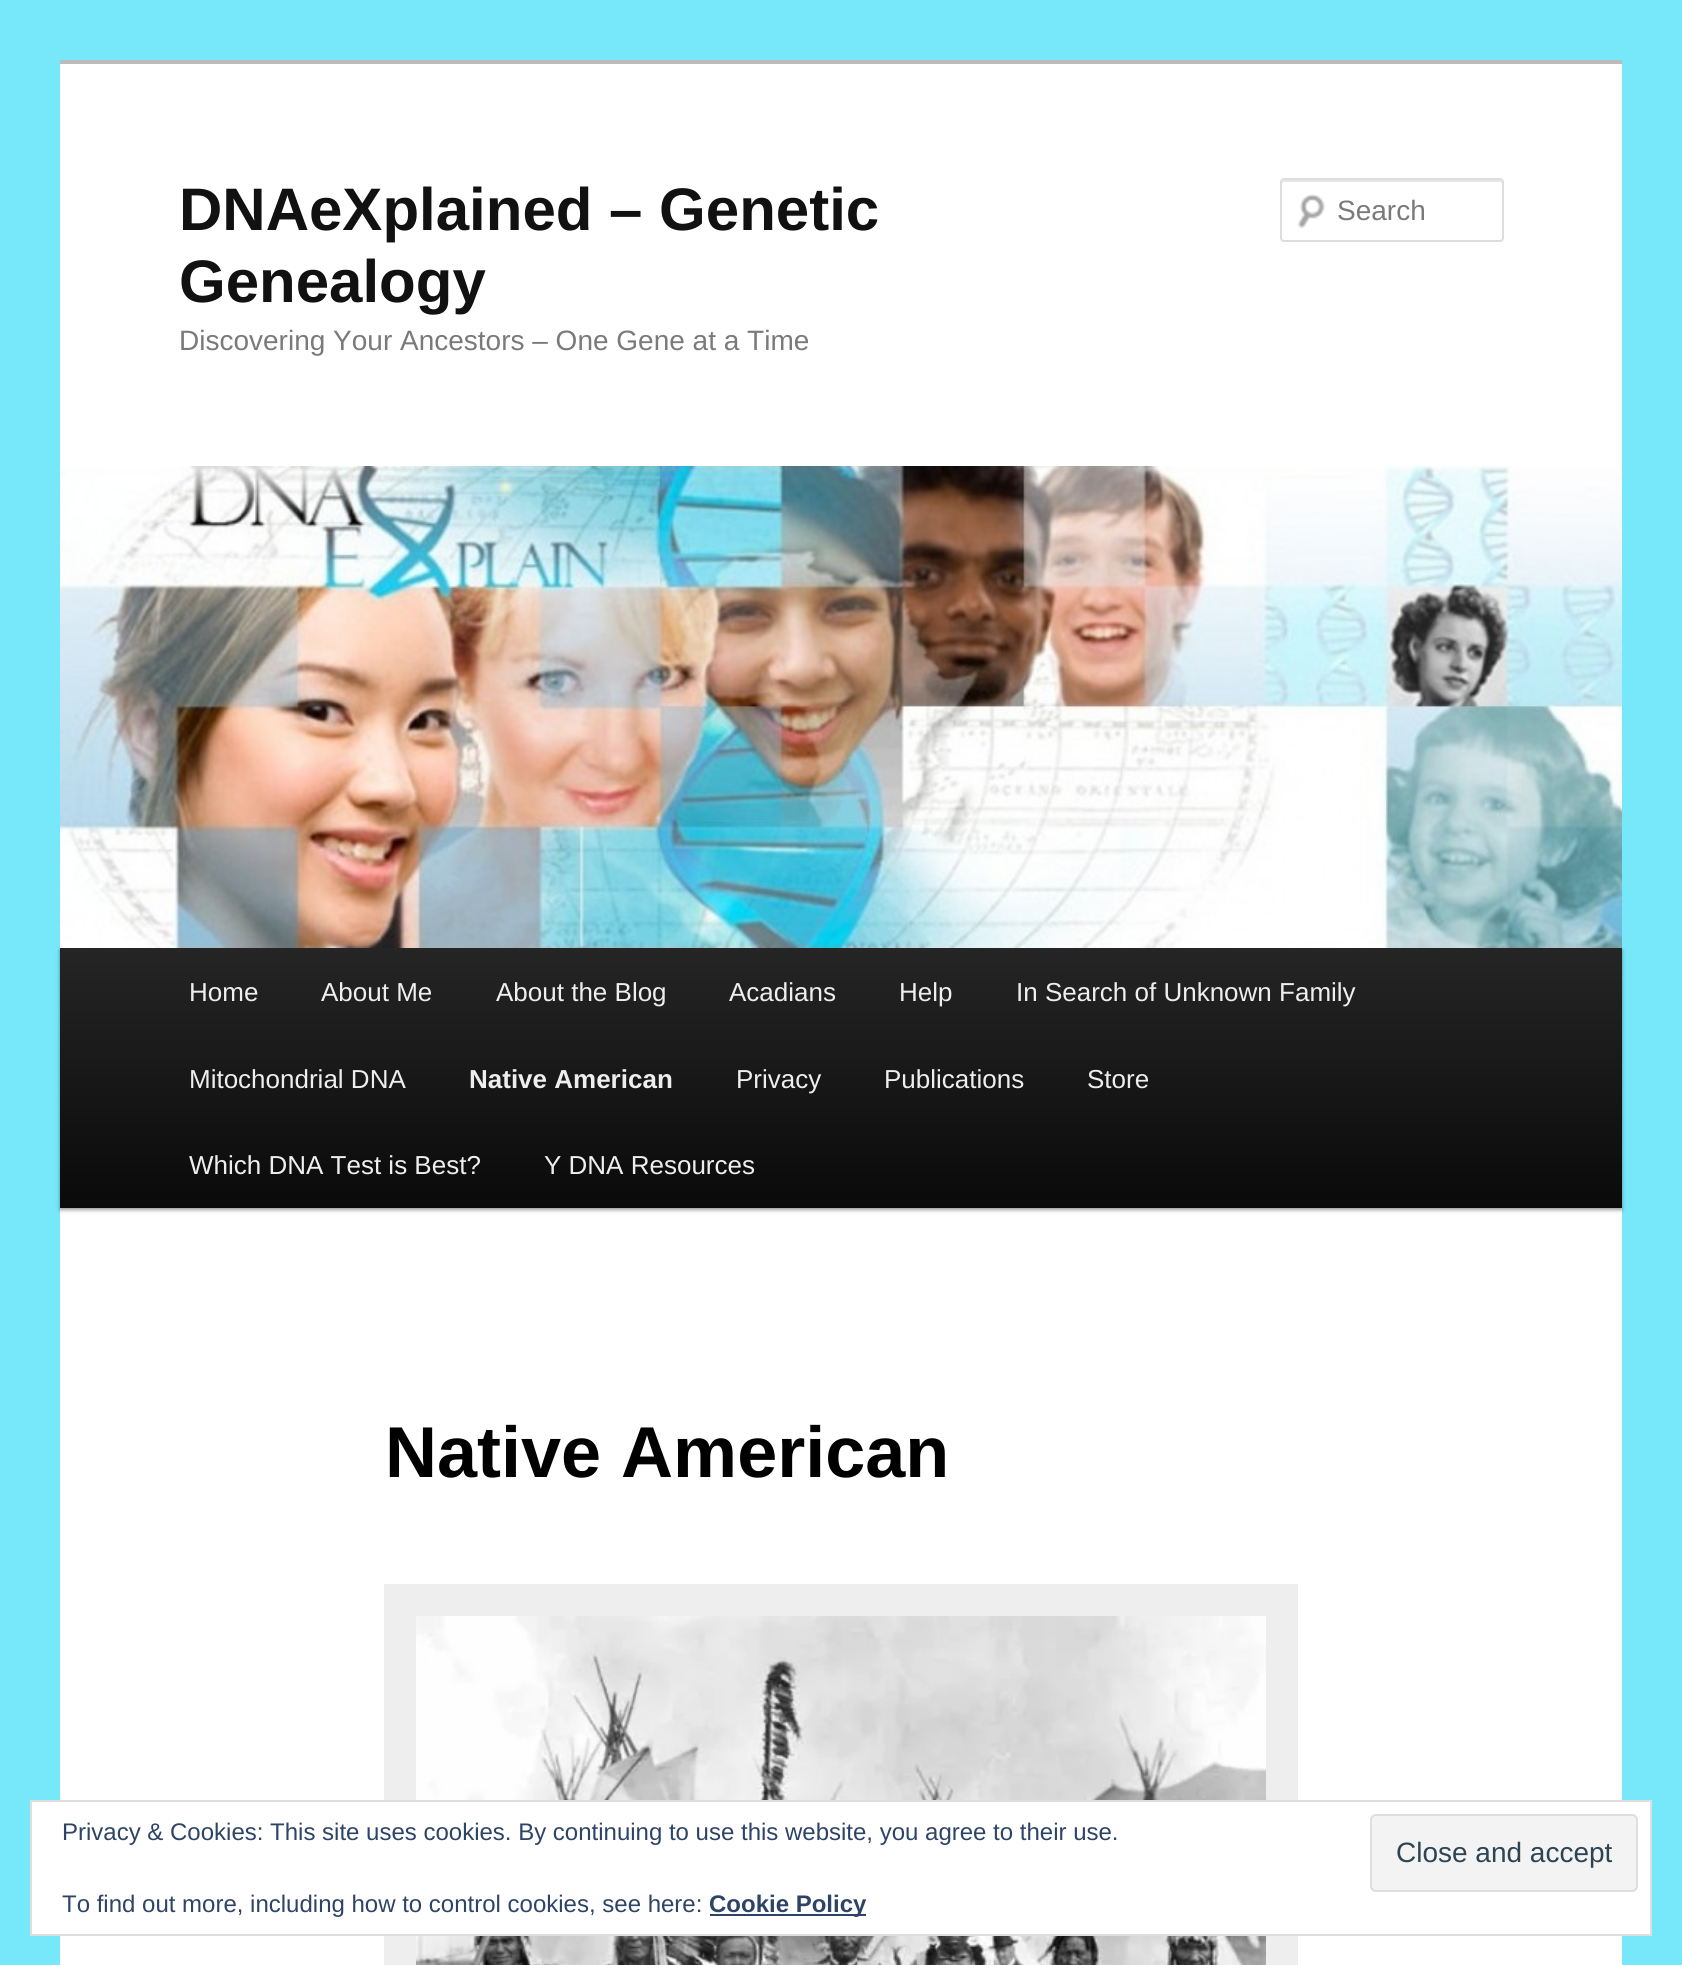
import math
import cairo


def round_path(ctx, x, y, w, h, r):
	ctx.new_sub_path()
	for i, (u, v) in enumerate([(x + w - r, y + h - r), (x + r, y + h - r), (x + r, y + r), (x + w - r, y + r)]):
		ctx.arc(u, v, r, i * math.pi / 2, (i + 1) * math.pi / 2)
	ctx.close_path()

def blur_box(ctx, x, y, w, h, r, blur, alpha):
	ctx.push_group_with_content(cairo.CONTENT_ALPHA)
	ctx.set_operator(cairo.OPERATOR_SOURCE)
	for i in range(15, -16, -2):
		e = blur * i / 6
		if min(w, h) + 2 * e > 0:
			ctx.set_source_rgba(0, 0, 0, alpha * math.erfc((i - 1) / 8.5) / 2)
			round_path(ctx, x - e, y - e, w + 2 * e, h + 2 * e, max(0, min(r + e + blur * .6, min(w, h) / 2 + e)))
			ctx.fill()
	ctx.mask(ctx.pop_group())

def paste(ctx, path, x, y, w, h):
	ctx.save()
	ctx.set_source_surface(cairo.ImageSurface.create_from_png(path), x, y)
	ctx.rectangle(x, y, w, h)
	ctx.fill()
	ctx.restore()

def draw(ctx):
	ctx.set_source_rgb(0.467, 0.91, 0.973)
	ctx.paint()
	ctx.set_source_rgb(1, 1, 1)
	ctx.rectangle(60, 64, 1562, 1901)
	ctx.fill()
	ctx.set_source_rgb(0.733, 0.733, 0.733)
	ctx.rectangle(60, 60, 1562, 4)
	ctx.fill()
	ctx.select_font_face('Liberation Sans', cairo.FONT_SLANT_NORMAL, cairo.FONT_WEIGHT_BOLD)
	ctx.set_font_size(60)
	ctx.set_source_rgb(0.067, 0.067, 0.067)
	ctx.move_to(179, 230)
	ctx.show_text('DNAeXplained – Genetic')
	ctx.move_to(179, 302)
	ctx.show_text('Genealogy')
	ctx.select_font_face('Liberation Sans')
	ctx.set_font_size(28)
	ctx.set_source_rgb(0.478, 0.478, 0.478)
	ctx.move_to(179, 350)
	ctx.show_text('Discovering Your Ancestors – One Gene at a Time')
	paste(ctx, 'media/1.png', 1297, 194, 28, 35)
	ctx.set_source_rgb(0.902, 0.902, 0.902)
	ctx.new_path()
	ctx.move_to(1284, 182)
	ctx.line_to(1500, 182)
	ctx.curve_to(1501, 182, 1502, 183, 1502, 184)
	ctx.line_to(1502, 182)
	ctx.curve_to(1502, 181, 1501, 180, 1500, 180)
	ctx.line_to(1284, 180)
	ctx.curve_to(1283, 180, 1282, 181, 1282, 182)
	ctx.line_to(1282, 184)
	ctx.curve_to(1282, 183, 1283, 182, 1284, 182)
	ctx.close_path()
	ctx.fill()
	round_path(ctx, 1281, 179, 222, 62, 3)
	ctx.set_source_rgb(0.867, 0.867, 0.867)
	ctx.stroke()
	ctx.set_source_rgb(0.478, 0.478, 0.478)
	ctx.move_to(1337, 220)
	ctx.show_text('Search')
	ctx.set_source_rgb(0, 0, 0)
	blur_box(ctx, 60, 950, 1562, 260, 0, 2, 0.4)
	paste(ctx, 'media/2.png', 60, 466, 1562, 482)
	gradient = cairo.LinearGradient(841, 948, 841, 1208)
	gradient.add_color_stop_rgba(0, 0.145, 0.145, 0.145, 1)
	gradient.add_color_stop_rgba(1, 0.039, 0.039, 0.039, 1)
	ctx.set_source(gradient)
	ctx.rectangle(60, 948, 1562, 260)
	ctx.fill()
	ctx.set_font_size(26)
	ctx.set_source_rgb(0.933, 0.933, 0.933)
	for x, y, s in [
		(189, 1001, 'Home'),
		(321, 1001, 'About Me'),
		(496, 1001, 'About the Blog'),
		(729, 1001, 'Acadians'),
		(899, 1001, 'Help'),
		(1016, 1001, 'In Search of Unknown Family'),
		(189, 1088, 'Mitochondrial DNA'),
	]:
		ctx.move_to(x, y)
		ctx.show_text(s)
	ctx.select_font_face('Liberation Sans', cairo.FONT_SLANT_NORMAL, cairo.FONT_WEIGHT_BOLD)
	ctx.move_to(469, 1088)
	ctx.show_text('Native American')
	ctx.select_font_face('Liberation Sans')
	for x, y, s in [
		(736, 1088, 'Privacy'),
		(884, 1088, 'Publications'),
		(1087, 1088, 'Store'),
		(189, 1174, 'Which DNA Test is Best?'),
		(544, 1174, 'Y DNA Resources'),
	]:
		ctx.move_to(x, y)
		ctx.show_text(s)
	ctx.select_font_face('Liberation Sans', cairo.FONT_SLANT_NORMAL, cairo.FONT_WEIGHT_BOLD)
	ctx.set_font_size(72)
	ctx.set_source_rgb(0, 0, 0)
	ctx.move_to(385, 1477)
	ctx.show_text('Native American')
	ctx.set_source_rgb(0.933, 0.933, 0.933)
	ctx.rectangle(384, 1584, 914, 381)
	ctx.fill()
	paste(ctx, 'media/3.png', 416, 1616, 850, 349)
	ctx.set_source_rgb(1, 1, 1)
	ctx.rectangle(31, 1801, 1620, 134)
	ctx.fill_preserve()
	ctx.set_source_rgb(0.871, 0.871, 0.871)
	ctx.stroke()
	ctx.select_font_face('Liberation Sans')
	ctx.set_font_size(24)
	ctx.set_source_rgb(0.18, 0.267, 0.404)
	ctx.move_to(62, 1840)
	ctx.show_text('Privacy & Cookies: This site uses cookies. By continuing to use this website, you agree to their use.')
	ctx.set_source_rgb(0.953, 0.953, 0.953)
	round_path(ctx, 1371, 1815, 266, 76, 5)
	ctx.fill_preserve()
	ctx.set_source_rgb(0.871, 0.871, 0.871)
	ctx.stroke()
	ctx.set_font_size(28)
	ctx.set_source_rgb(0.18, 0.267, 0.325)
	ctx.move_to(1396, 1862)
	ctx.show_text('Close and accept')
	ctx.set_font_size(24)
	ctx.set_source_rgb(0.18, 0.267, 0.404)
	ctx.move_to(62, 1912)
	ctx.show_text('To find out more, including how to control cookies, see here:')
	ctx.rectangle(710, 1914, 156, 2)
	ctx.fill()
	ctx.select_font_face('Liberation Sans', cairo.FONT_SLANT_NORMAL, cairo.FONT_WEIGHT_BOLD)
	ctx.move_to(709, 1912)
	ctx.show_text('Cookie Policy')


surface = cairo.ImageSurface(cairo.FORMAT_RGB24, 1682, 1965)
ctx = cairo.Context(surface)
options = cairo.FontOptions()
options.set_hint_metrics(cairo.HINT_METRICS_OFF)
options.set_hint_style(cairo.HINT_STYLE_NONE)
ctx.set_font_options(options)
ctx.set_miter_limit(4)
draw(ctx)
surface.write_to_png('image.png')
